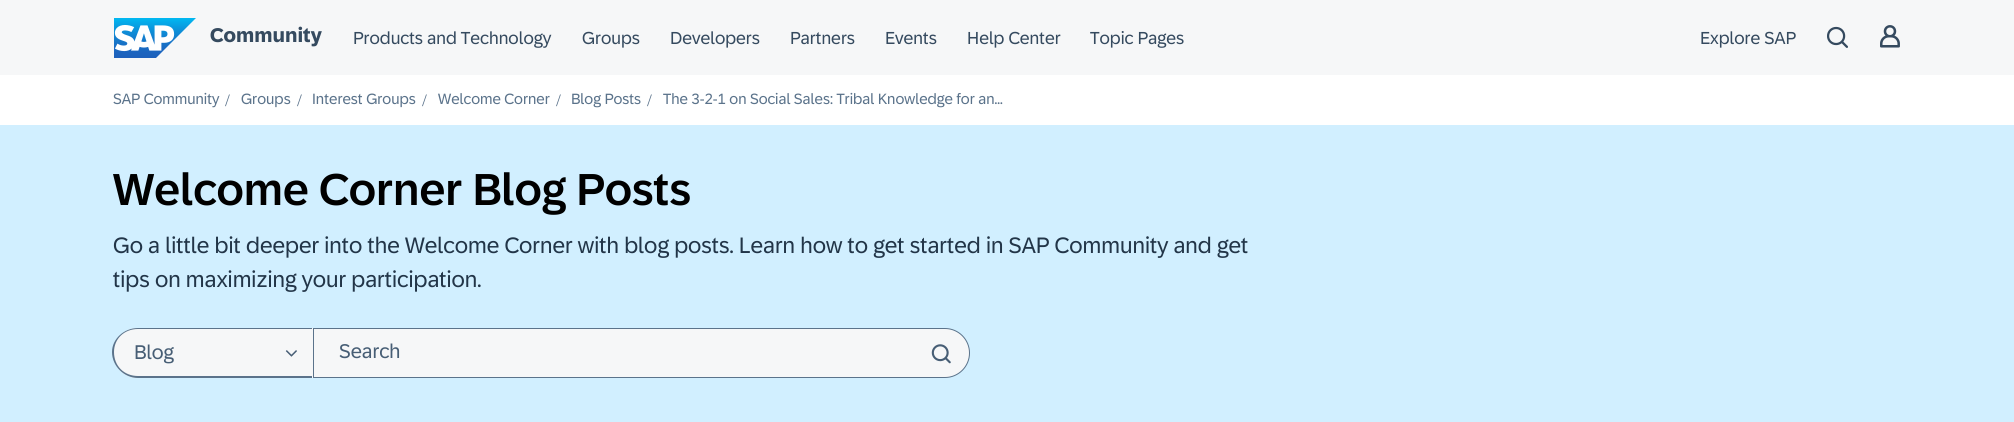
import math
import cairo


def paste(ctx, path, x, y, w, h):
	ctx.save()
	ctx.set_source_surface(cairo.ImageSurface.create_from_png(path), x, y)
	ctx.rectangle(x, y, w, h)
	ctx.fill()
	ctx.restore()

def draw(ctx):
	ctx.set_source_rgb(1, 1, 1)
	ctx.paint()
	ctx.set_source_rgb(0.961, 0.965, 0.969)
	ctx.rectangle(0, 0, 2014, 75)
	ctx.fill()
	paste(ctx, 'media/1.png', 114, 18, 82, 40)
	ctx.select_font_face('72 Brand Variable', cairo.FONT_SLANT_NORMAL, cairo.FONT_WEIGHT_BOLD)
	ctx.set_font_size(20)
	ctx.set_source_rgb(0.208, 0.29, 0.373)
	ctx.move_to(210, 42)
	ctx.show_text('Community')
	ctx.select_font_face('72 Brand Variable')
	ctx.set_font_size(17.5)
	for x, y, s in [
		(353, 44, 'Products and Technology'),
		(582, 44, 'Groups'),
		(670, 44, 'Developers'),
		(790, 44, 'Partners'),
		(885, 44, 'Events'),
		(967, 44, 'Help Center'),
		(1090, 44, 'Topic Pages'),
		(1700, 44, 'Explore SAP'),
	]:
		ctx.move_to(x, y)
		ctx.show_text(s)
	paste(ctx, 'media/2.png', 1827, 26, 21, 22)
	paste(ctx, 'media/3.png', 1880, 25, 20, 23)
	ctx.set_font_size(15)
	ctx.set_source_rgb(0.357, 0.451, 0.545)
	ctx.move_to(113, 104)
	ctx.show_text('SAP Community')
	ctx.select_font_face('Liberation Serif')
	ctx.set_font_size(17.5)
	ctx.move_to(225, 106)
	ctx.show_text('/')
	ctx.select_font_face('72 Brand Variable')
	ctx.set_font_size(15)
	ctx.move_to(241, 104)
	ctx.show_text('Groups')
	ctx.select_font_face('Liberation Serif')
	ctx.set_font_size(17.5)
	ctx.move_to(297, 106)
	ctx.show_text('/')
	ctx.select_font_face('72 Brand Variable')
	ctx.set_font_size(15)
	ctx.move_to(312, 104)
	ctx.show_text('Interest Groups')
	ctx.select_font_face('Liberation Serif')
	ctx.set_font_size(17.5)
	ctx.move_to(422, 106)
	ctx.show_text('/')
	ctx.select_font_face('72 Brand Variable')
	ctx.set_font_size(15)
	ctx.move_to(438, 104)
	ctx.show_text('Welcome Corner')
	ctx.select_font_face('Liberation Serif')
	ctx.set_font_size(17.5)
	ctx.move_to(556, 106)
	ctx.show_text('/')
	ctx.select_font_face('72 Brand Variable')
	ctx.set_font_size(15)
	ctx.move_to(571, 104)
	ctx.show_text('Blog Posts')
	ctx.select_font_face('Liberation Serif')
	ctx.set_font_size(17.5)
	ctx.move_to(647, 106)
	ctx.show_text('/')
	ctx.select_font_face('72 Brand Variable')
	ctx.set_font_size(15)
	ctx.move_to(663, 104)
	ctx.show_text('The 3-2-1 on Social Sales: Tribal Knowledge for an...')
	ctx.set_source_rgb(0.82, 0.937, 1)
	ctx.rectangle(0, 125, 2014, 297)
	ctx.fill()
	ctx.select_font_face('72 Brand Variable Medium')
	ctx.set_font_size(45)
	ctx.set_source_rgb(0, 0, 0)
	ctx.move_to(113, 205)
	ctx.show_text('Welcome Corner Blog Posts')
	ctx.select_font_face('72 Brand Variable')
	ctx.set_font_size(22.5)
	ctx.set_source_rgb(0.133, 0.208, 0.282)
	ctx.move_to(113, 253)
	ctx.show_text('Go a little bit deeper into the Welcome Corner with blog posts. Learn how to get started in SAP Community and get')
	ctx.move_to(113, 287)
	ctx.show_text('tips on maximizing your participation.')
	ctx.set_source_rgb(0.961, 0.965, 0.969)
	ctx.new_path()
	ctx.move_to(138, 328)
	ctx.line_to(313, 328)
	ctx.line_to(313, 378)
	ctx.line_to(138, 378)
	ctx.curve_to(124, 378, 113, 367, 113, 353)
	ctx.curve_to(113, 339, 124, 328, 138, 328)
	ctx.close_path()
	ctx.fill()
	ctx.set_source_rgb(0.357, 0.451, 0.545)
	ctx.set_fill_rule(cairo.FILL_RULE_EVEN_ODD)
	ctx.new_path()
	ctx.move_to(138, 328)
	ctx.line_to(312, 328)
	ctx.line_to(312, 378)
	ctx.line_to(138, 378)
	ctx.curve_to(124, 378, 112, 366, 112, 352)
	ctx.curve_to(112, 339, 124, 328, 138, 328)
	ctx.close_path()
	ctx.move_to(138, 329)
	ctx.line_to(312, 329)
	ctx.line_to(312, 376)
	ctx.line_to(138, 376)
	ctx.curve_to(124, 376, 114, 366, 114, 352)
	ctx.curve_to(114, 339, 124, 329, 138, 329)
	ctx.close_path()
	ctx.fill()
	ctx.set_font_size(20)
	ctx.set_source_rgb(0.278, 0.369, 0.459)
	ctx.move_to(134, 359)
	ctx.show_text('Blog')
	paste(ctx, 'media/4.png', 285, 350, 12, 7)
	ctx.set_source_rgb(0.961, 0.965, 0.969)
	ctx.new_path()
	ctx.move_to(313.5, 328.5)
	ctx.line_to(945, 328.5)
	ctx.curve_to(958.5, 328.5, 969.5, 339.5, 969.5, 353)
	ctx.curve_to(969.5, 366.5, 958.5, 377.5, 945, 377.5)
	ctx.line_to(313.5, 377.5)
	ctx.close_path()
	ctx.fill_preserve()
	ctx.set_source_rgb(0.357, 0.451, 0.545)
	ctx.set_line_width(1)
	ctx.stroke()
	ctx.set_source_rgb(0.278, 0.369, 0.459)
	ctx.move_to(339, 358)
	ctx.show_text('Search')
	paste(ctx, 'media/5.png', 931, 344, 20, 20)


surface = cairo.ImageSurface(cairo.FORMAT_RGB24, 2014, 422)
ctx = cairo.Context(surface)
options = cairo.FontOptions()
options.set_hint_metrics(cairo.HINT_METRICS_OFF)
options.set_hint_style(cairo.HINT_STYLE_NONE)
ctx.set_font_options(options)
ctx.set_miter_limit(4)
draw(ctx)
surface.write_to_png('image.png')
